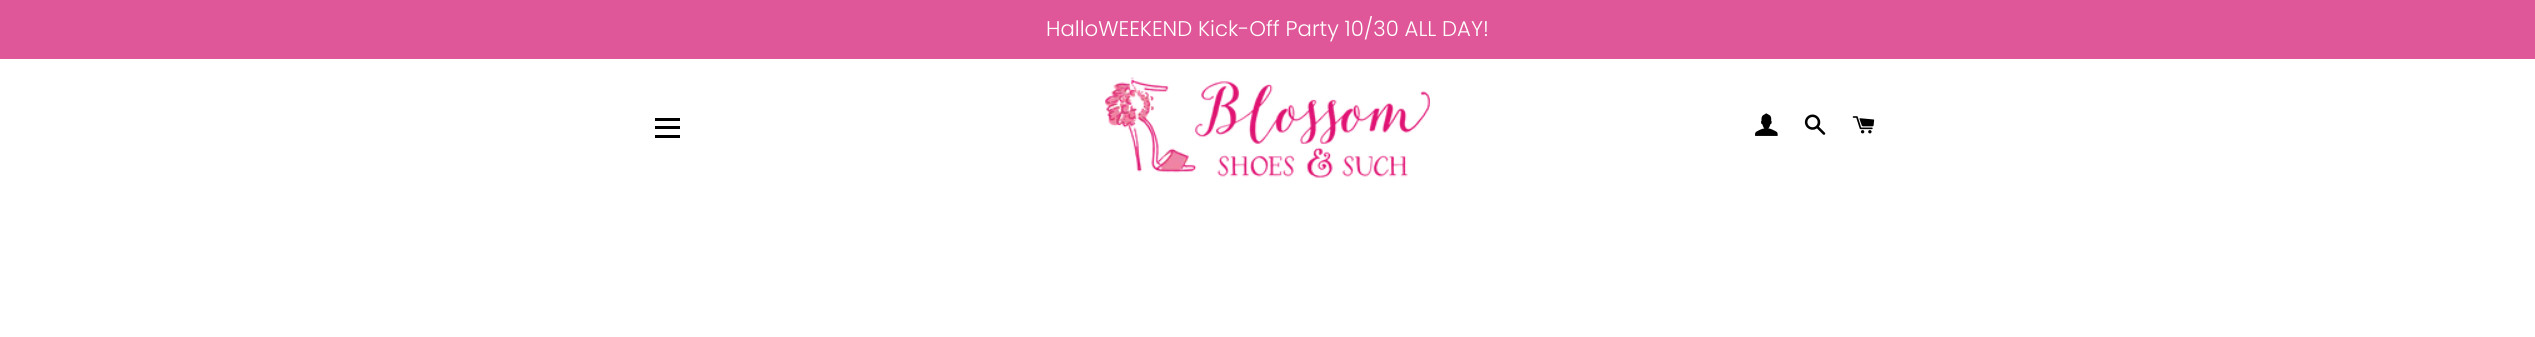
import math
import cairo


def paste(ctx, path, x, y, w, h):
	ctx.save()
	ctx.set_source_surface(cairo.ImageSurface.create_from_png(path), x, y)
	ctx.rectangle(x, y, w, h)
	ctx.fill()
	ctx.restore()

def draw(ctx):
	ctx.set_source_rgb(1, 1, 1)
	ctx.paint()
	ctx.set_source_rgb(0.875, 0.341, 0.596)
	ctx.rectangle(0, 0, 2535, 59)
	ctx.fill()
	ctx.select_font_face('Poppins Light')
	ctx.set_font_size(21.25)
	ctx.set_source_rgb(1, 1, 1)
	ctx.move_to(1046, 36)
	ctx.show_text('HalloWEEKEND Kick-Off Party 10/30 ALL DAY!')
	ctx.set_source_rgb(0, 0, 0)
	ctx.rectangle(655, 118, 25, 3)
	ctx.rectangle(655, 126, 25, 3)
	ctx.rectangle(655, 135, 25, 3)
	ctx.fill()
	paste(ctx, 'media/1.png', 1105, 77, 325, 101)
	paste(ctx, 'media/2.png', 1755, 113, 23, 23)
	paste(ctx, 'media/3.png', 1804, 114, 22, 21)
	paste(ctx, 'media/4.png', 1852, 116, 23, 18)


surface = cairo.ImageSurface(cairo.FORMAT_RGB24, 2535, 337)
ctx = cairo.Context(surface)
options = cairo.FontOptions()
options.set_hint_metrics(cairo.HINT_METRICS_OFF)
options.set_hint_style(cairo.HINT_STYLE_NONE)
ctx.set_font_options(options)
ctx.set_miter_limit(4)
draw(ctx)
surface.write_to_png('image.png')
